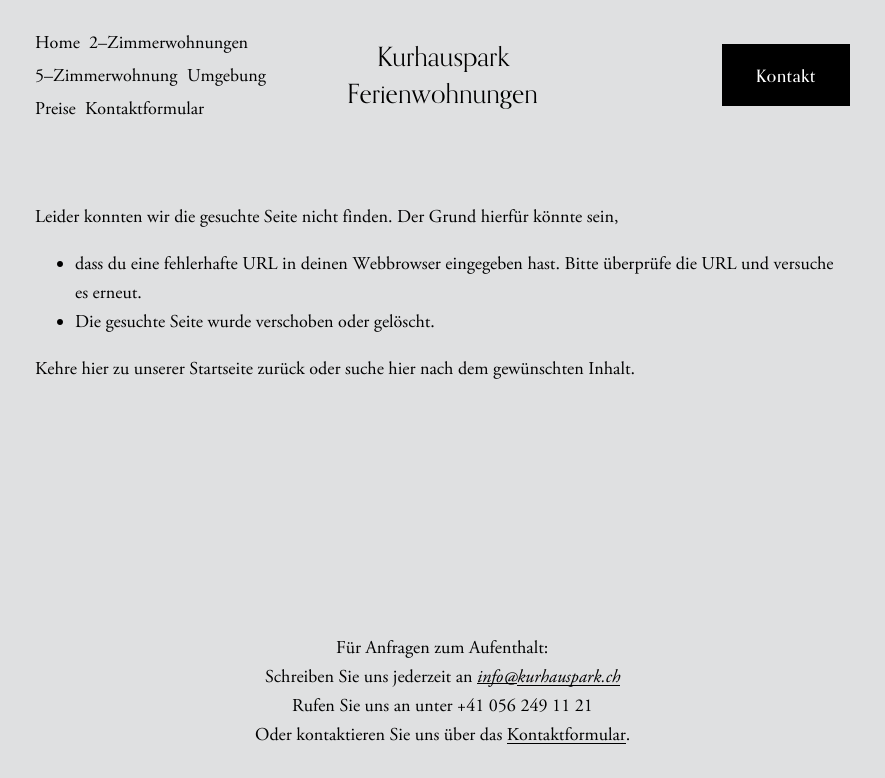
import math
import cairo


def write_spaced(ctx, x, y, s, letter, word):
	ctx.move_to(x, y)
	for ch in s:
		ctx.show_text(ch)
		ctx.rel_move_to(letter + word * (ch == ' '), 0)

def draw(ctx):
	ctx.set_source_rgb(0.875, 0.878, 0.882)
	ctx.paint()
	ctx.select_font_face('Adobe Garamond')
	ctx.set_font_size(18.1)
	ctx.set_source_rgb(0, 0, 0)
	for x, y, s in [
		(35, 48, 'Home'),
		(89, 48, '2–Zimmerwohnungen'),
		(35, 81, '5–Zimmerwohnung'),
		(187, 81, 'Umgebung'),
		(35, 114, 'Preise'),
		(85, 114, 'Kontaktformular'),
	]:
		ctx.move_to(x, y)
		ctx.show_text(s)
	ctx.select_font_face('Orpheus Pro')
	ctx.set_font_size(26.5)
	ctx.move_to(377, 66)
	ctx.show_text('Kurhauspark')
	ctx.move_to(347, 103)
	ctx.show_text('Ferienwohnungen')
	ctx.rectangle(722, 44, 128, 62)
	ctx.fill()
	ctx.select_font_face('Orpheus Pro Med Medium')
	ctx.set_font_size(17)
	ctx.set_source_rgb(1, 1, 1)
	write_spaced(ctx, 756, 82, 'Kontakt', 0.75, 0)
	ctx.select_font_face('Adobe Garamond')
	ctx.set_font_size(18.1)
	ctx.set_source_rgb(0, 0, 0)
	ctx.move_to(35, 222)
	ctx.show_text('Leider konnten wir die gesuchte Seite nicht finden. Der Grund hierfür könnte sein,')
	ctx.new_path()
	ctx.arc(60, 264, 3, 0, 2 * math.pi)
	ctx.fill()
	ctx.move_to(75, 269)
	ctx.show_text('dass du eine fehlerhafte URL in deinen Webbrowser eingegeben hast. Bitte überprüfe die URL und versuche')
	ctx.move_to(75, 298)
	ctx.show_text('es erneut.')
	ctx.new_path()
	ctx.arc(60, 322, 3, 0, 2 * math.pi)
	ctx.fill()
	for x, y, s in [
		(75, 327, 'Die gesuchte Seite wurde verschoben oder gelöscht.'),
		(35, 374, 'Kehre hier zu unserer Startseite zurück oder suche hier nach dem gewünschten Inhalt.'),
		(336, 653, 'Für Anfragen zum Aufenthalt:'),
		(265, 682, 'Schreiben Sie uns jederzeit an'),
	]:
		ctx.move_to(x, y)
		ctx.show_text(s)
	ctx.rectangle(477, 683, 40, 1)
	ctx.fill()
	ctx.select_font_face('Adobe Garamond', cairo.FONT_SLANT_ITALIC)
	ctx.move_to(477, 682)
	ctx.show_text('info@')
	ctx.rectangle(517, 685, 103, 1)
	ctx.fill()
	ctx.move_to(517, 682)
	ctx.show_text('kurhauspark.ch')
	ctx.select_font_face('Adobe Garamond')
	ctx.move_to(292, 711)
	ctx.show_text('Rufen Sie uns an unter +41 056 249 11 21')
	ctx.move_to(255, 740)
	ctx.show_text('Oder kontaktieren Sie uns über das Kontaktformular.')
	ctx.rectangle(507, 743, 119, 1)
	ctx.fill()


surface = cairo.ImageSurface(cairo.FORMAT_RGB24, 885, 778)
ctx = cairo.Context(surface)
options = cairo.FontOptions()
options.set_hint_metrics(cairo.HINT_METRICS_OFF)
options.set_hint_style(cairo.HINT_STYLE_NONE)
ctx.set_font_options(options)
ctx.set_miter_limit(4)
draw(ctx)
surface.write_to_png('image.png')
